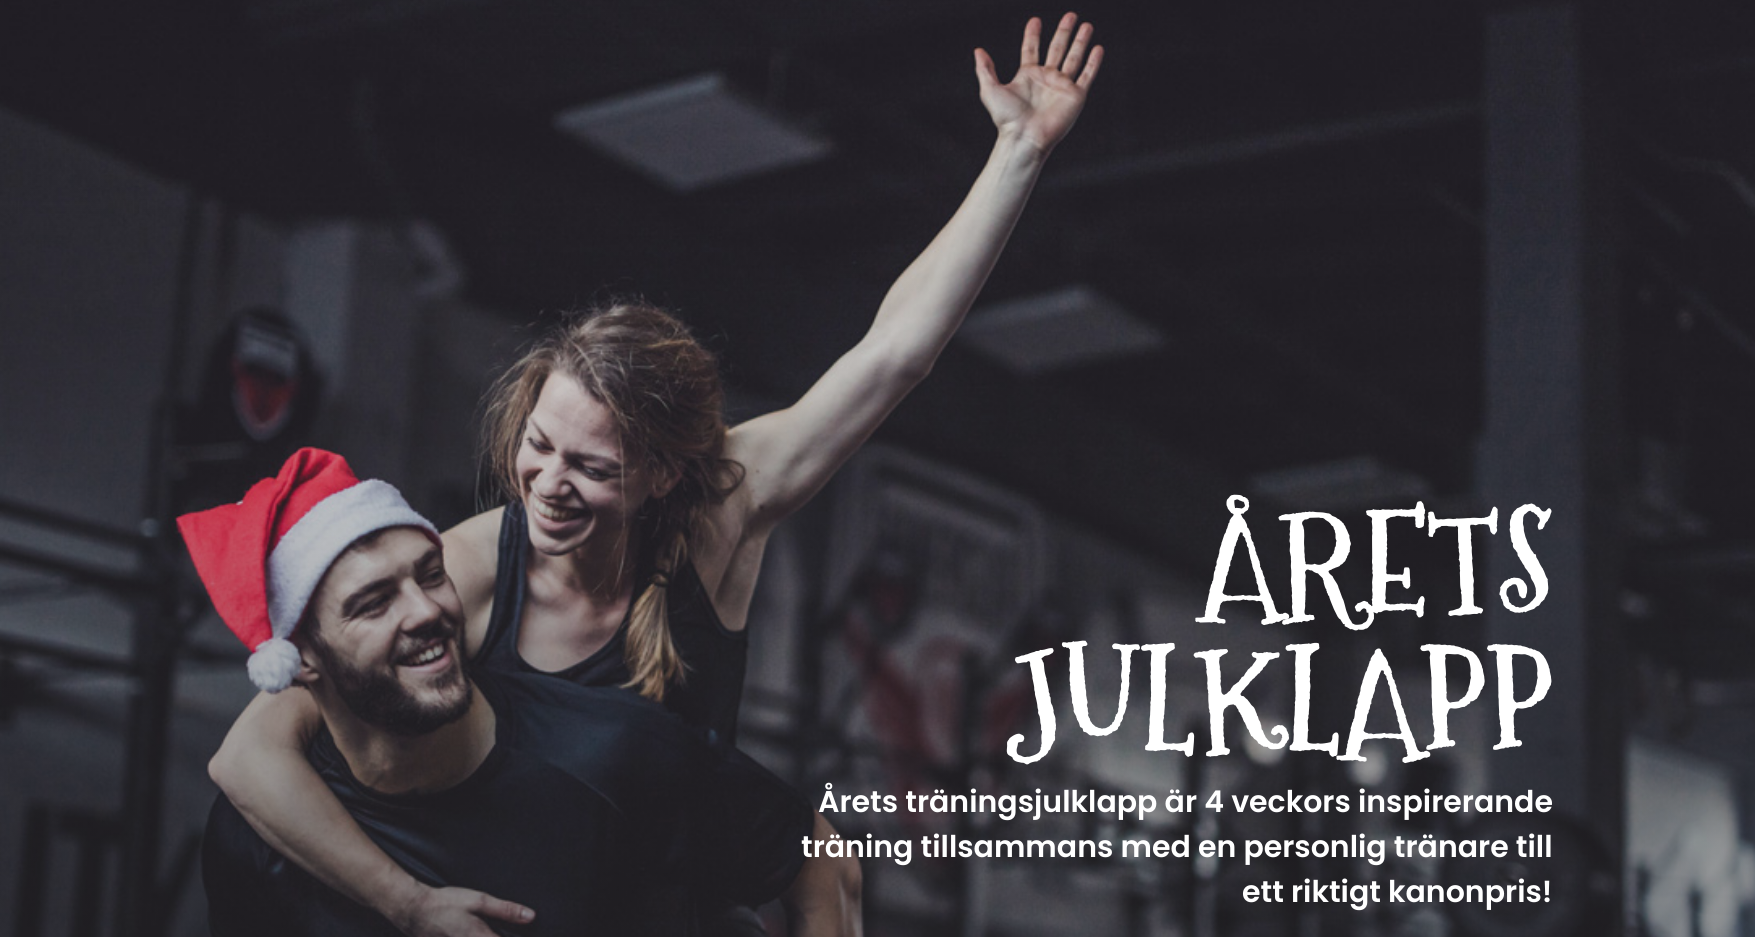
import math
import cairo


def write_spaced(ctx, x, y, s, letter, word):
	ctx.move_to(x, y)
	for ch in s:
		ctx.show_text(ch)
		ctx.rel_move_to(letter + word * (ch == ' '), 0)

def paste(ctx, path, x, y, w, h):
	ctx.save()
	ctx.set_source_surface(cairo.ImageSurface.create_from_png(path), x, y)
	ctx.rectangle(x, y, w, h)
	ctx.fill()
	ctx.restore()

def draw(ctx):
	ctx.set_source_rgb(1, 1, 1)
	ctx.paint()
	paste(ctx, 'media/1.png', 0, 0, 1755, 937)
	ctx.select_font_face('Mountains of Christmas', cairo.FONT_SLANT_NORMAL, cairo.FONT_WEIGHT_BOLD)
	ctx.set_font_size(137.5)
	ctx.set_source_rgb(1, 1, 1)
	write_spaced(ctx, 1197, 611, 'ÅRETS', -1.25, 0)
	write_spaced(ctx, 1006, 749, 'JULKLAPP', -1.25, 0)
	ctx.select_font_face('Poppins SemiBold')
	ctx.set_font_size(30)
	for x, y, s in [
		(818, 812, 'Årets träningsjulklapp är 4 veckors inspirerande'),
		(801, 857, 'träning tillsammans med en personlig tränare till'),
		(1242, 902, 'ett riktigt kanonpris!'),
	]:
		ctx.move_to(x, y)
		ctx.show_text(s)


surface = cairo.ImageSurface(cairo.FORMAT_RGB24, 1755, 937)
ctx = cairo.Context(surface)
options = cairo.FontOptions()
options.set_hint_metrics(cairo.HINT_METRICS_OFF)
options.set_hint_style(cairo.HINT_STYLE_NONE)
ctx.set_font_options(options)
ctx.set_miter_limit(4)
draw(ctx)
surface.write_to_png('image.png')
